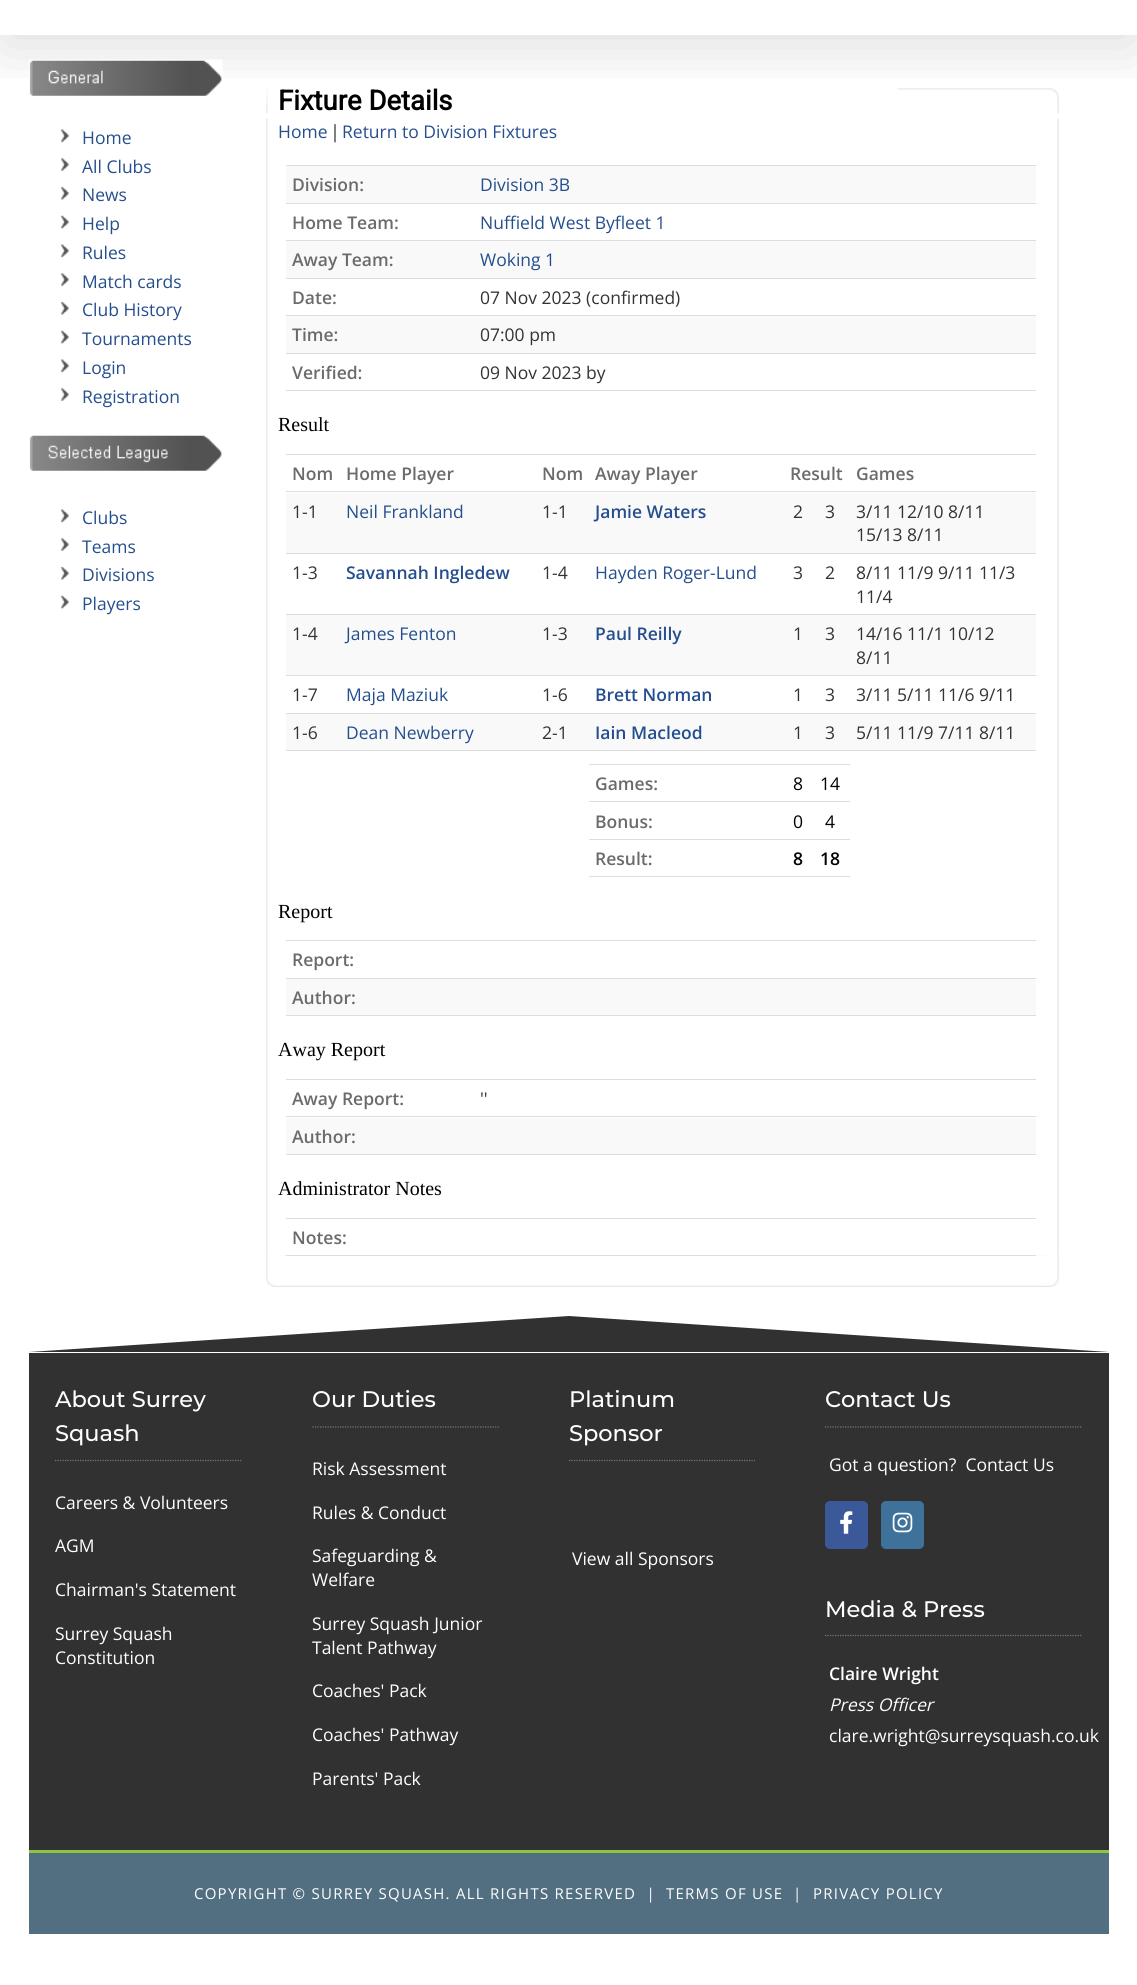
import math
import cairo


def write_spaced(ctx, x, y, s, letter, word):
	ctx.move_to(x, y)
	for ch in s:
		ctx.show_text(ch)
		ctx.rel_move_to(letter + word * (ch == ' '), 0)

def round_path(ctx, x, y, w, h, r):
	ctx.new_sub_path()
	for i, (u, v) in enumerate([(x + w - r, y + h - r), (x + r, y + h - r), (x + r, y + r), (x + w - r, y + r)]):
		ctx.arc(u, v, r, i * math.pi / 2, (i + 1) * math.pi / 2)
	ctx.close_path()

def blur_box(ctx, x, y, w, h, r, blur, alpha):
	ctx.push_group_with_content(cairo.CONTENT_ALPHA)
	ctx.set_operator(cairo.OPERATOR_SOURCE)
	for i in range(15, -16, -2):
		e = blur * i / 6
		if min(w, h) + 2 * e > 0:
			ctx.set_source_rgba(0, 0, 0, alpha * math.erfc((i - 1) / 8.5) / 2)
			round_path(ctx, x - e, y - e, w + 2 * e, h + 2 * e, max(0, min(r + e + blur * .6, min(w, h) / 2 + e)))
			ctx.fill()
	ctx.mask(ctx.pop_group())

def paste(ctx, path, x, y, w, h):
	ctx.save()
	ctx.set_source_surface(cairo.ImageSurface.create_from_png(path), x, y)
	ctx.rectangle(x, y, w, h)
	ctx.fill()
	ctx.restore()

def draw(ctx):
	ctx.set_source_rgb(1, 1, 1)
	ctx.paint()
	ctx.save()
	ctx.rectangle(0, 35, 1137, 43)
	ctx.clip()
	ctx.set_source_rgb(0, 0, 0)
	blur_box(ctx, 3, -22, 1132, 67, 0, 31, 0.14)
	ctx.restore()
	paste(ctx, 'media/1.png', 29, 59, 194, 37)
	paste(ctx, 'media/2.png', 61, 129, 8, 14)
	ctx.select_font_face('Open Sans')
	ctx.set_font_size(17.5)
	ctx.set_source_rgb(0.141, 0.306, 0.557)
	ctx.move_to(82, 144)
	ctx.show_text('Home')
	paste(ctx, 'media/3.png', 61, 158, 8, 13)
	ctx.move_to(82, 173)
	ctx.show_text('All Clubs')
	paste(ctx, 'media/4.png', 61, 186, 8, 14)
	ctx.move_to(82, 201)
	ctx.show_text('News')
	paste(ctx, 'media/5.png', 61, 215, 8, 14)
	ctx.move_to(82, 230)
	ctx.show_text('Help')
	paste(ctx, 'media/2.png', 61, 244, 8, 14)
	ctx.move_to(82, 259)
	ctx.show_text('Rules')
	paste(ctx, 'media/3.png', 61, 273, 8, 13)
	ctx.move_to(82, 288)
	ctx.show_text('Match cards')
	paste(ctx, 'media/4.png', 61, 301, 8, 14)
	ctx.move_to(82, 316)
	ctx.show_text('Club History')
	paste(ctx, 'media/5.png', 61, 330, 8, 14)
	ctx.move_to(82, 345)
	ctx.show_text('Tournaments')
	paste(ctx, 'media/2.png', 61, 359, 8, 14)
	ctx.move_to(82, 374)
	ctx.show_text('Login')
	paste(ctx, 'media/3.png', 61, 388, 8, 13)
	ctx.move_to(82, 403)
	ctx.show_text('Registration')
	paste(ctx, 'media/6.png', 29, 435, 193, 36)
	paste(ctx, 'media/2.png', 61, 509, 8, 14)
	ctx.move_to(82, 524)
	ctx.show_text('Clubs')
	paste(ctx, 'media/3.png', 61, 538, 8, 13)
	ctx.move_to(82, 553)
	ctx.show_text('Teams')
	paste(ctx, 'media/4.png', 61, 566, 8, 14)
	ctx.move_to(82, 581)
	ctx.show_text('Divisions')
	paste(ctx, 'media/5.png', 61, 595, 8, 14)
	ctx.move_to(82, 610)
	ctx.show_text('Players')
	paste(ctx, 'media/7.png', 266, 82, 12, 31)
	ctx.select_font_face('Roboto', cairo.FONT_SLANT_NORMAL, cairo.FONT_WEIGHT_BOLD)
	ctx.set_font_size(27.5)
	ctx.set_source_rgb(0, 0, 0)
	ctx.move_to(278, 110)
	ctx.show_text('Fixture Details')
	paste(ctx, 'media/8.png', 897, 88, 148, 2)
	paste(ctx, 'media/9.png', 1045, 88, 14, 26)
	paste(ctx, 'media/10.png', 266, 118, 2, 1138)
	ctx.select_font_face('Open Sans')
	ctx.set_font_size(17.5)
	ctx.set_source_rgb(0.141, 0.306, 0.557)
	ctx.move_to(278, 138)
	ctx.show_text('Home')
	ctx.select_font_face('Liberation Serif')
	ctx.set_font_size(20)
	ctx.set_source_rgb(0, 0, 0)
	ctx.move_to(333, 138)
	ctx.show_text('|')
	ctx.select_font_face('Open Sans')
	ctx.set_font_size(17.5)
	ctx.set_source_rgb(0.141, 0.306, 0.557)
	ctx.move_to(342, 138)
	ctx.show_text('Return to Division Fixtures')
	ctx.set_source_rgb(0.976, 0.976, 0.976)
	ctx.rectangle(286, 166, 750, 37)
	ctx.fill()
	ctx.set_source_rgb(0.867, 0.867, 0.867)
	ctx.rectangle(286, 165, 750, 1)
	ctx.rectangle(286, 203, 750, 1)
	ctx.fill()
	ctx.select_font_face('Open Sans SemiBold')
	ctx.set_source_rgb(0.42, 0.42, 0.42)
	ctx.move_to(292, 191)
	ctx.show_text('Division:')
	ctx.select_font_face('Open Sans')
	ctx.set_source_rgb(0.141, 0.306, 0.557)
	ctx.move_to(480, 191)
	ctx.show_text('Division 3B')
	ctx.set_source_rgb(0.867, 0.867, 0.867)
	ctx.rectangle(286, 240, 750, 1)
	ctx.fill()
	ctx.select_font_face('Open Sans SemiBold')
	ctx.set_source_rgb(0.42, 0.42, 0.42)
	ctx.move_to(292, 229)
	ctx.show_text('Home Team:')
	ctx.select_font_face('Open Sans')
	ctx.set_source_rgb(0.141, 0.306, 0.557)
	ctx.move_to(480, 229)
	ctx.show_text('Nuffield West Byfleet 1')
	ctx.set_source_rgb(0.976, 0.976, 0.976)
	ctx.rectangle(286, 241, 750, 37)
	ctx.fill()
	ctx.set_source_rgb(0.867, 0.867, 0.867)
	ctx.rectangle(286, 278, 750, 1)
	ctx.fill()
	ctx.select_font_face('Open Sans SemiBold')
	ctx.set_source_rgb(0.42, 0.42, 0.42)
	ctx.move_to(292, 266)
	ctx.show_text('Away Team:')
	ctx.select_font_face('Open Sans')
	ctx.set_source_rgb(0.141, 0.306, 0.557)
	ctx.move_to(480, 266)
	ctx.show_text('Woking 1')
	ctx.set_source_rgb(0.867, 0.867, 0.867)
	ctx.rectangle(286, 315, 750, 1)
	ctx.fill()
	ctx.select_font_face('Open Sans SemiBold')
	ctx.set_source_rgb(0.42, 0.42, 0.42)
	ctx.move_to(292, 304)
	ctx.show_text('Date:')
	ctx.select_font_face('Open Sans')
	ctx.set_source_rgb(0.2, 0.2, 0.2)
	ctx.move_to(480, 304)
	ctx.show_text('07 Nov 2023 (confirmed)')
	ctx.set_source_rgb(0.976, 0.976, 0.976)
	ctx.rectangle(286, 316, 750, 37)
	ctx.fill()
	ctx.set_source_rgb(0.867, 0.867, 0.867)
	ctx.rectangle(286, 353, 750, 1)
	ctx.fill()
	ctx.select_font_face('Open Sans SemiBold')
	ctx.set_source_rgb(0.42, 0.42, 0.42)
	ctx.move_to(292, 341)
	ctx.show_text('Time:')
	ctx.select_font_face('Open Sans')
	ctx.set_source_rgb(0.2, 0.2, 0.2)
	ctx.move_to(480, 341)
	ctx.show_text('07:00 pm')
	ctx.set_source_rgb(0.867, 0.867, 0.867)
	ctx.rectangle(286, 390, 750, 1)
	ctx.fill()
	ctx.select_font_face('Open Sans SemiBold')
	ctx.set_source_rgb(0.42, 0.42, 0.42)
	ctx.move_to(292, 379)
	ctx.show_text('Verified:')
	ctx.select_font_face('Open Sans')
	ctx.set_source_rgb(0.2, 0.2, 0.2)
	ctx.move_to(480, 379)
	ctx.show_text('09 Nov 2023 by')
	ctx.select_font_face('Liberation Serif')
	ctx.set_font_size(20)
	ctx.set_source_rgb(0, 0, 0)
	ctx.move_to(278, 431)
	ctx.show_text('Result')
	ctx.set_source_rgb(0.867, 0.867, 0.867)
	ctx.rectangle(286, 454, 750, 1)
	ctx.fill()
	ctx.rectangle(286, 491, 750, 1)
	ctx.fill()
	ctx.select_font_face('Open Sans SemiBold')
	ctx.set_font_size(17.5)
	ctx.set_source_rgb(0.42, 0.42, 0.42)
	for x, y, s in [
		(292, 480, 'Nom'),
		(346, 480, 'Home Player'),
		(542, 480, 'Nom'),
		(595, 480, 'Away Player'),
		(790, 480, 'Result'),
		(856, 480, 'Games'),
	]:
		ctx.move_to(x, y)
		ctx.show_text(s)
	ctx.set_source_rgb(0.976, 0.976, 0.976)
	ctx.rectangle(286, 493, 750, 60)
	ctx.fill()
	ctx.set_source_rgb(0.867, 0.867, 0.867)
	ctx.rectangle(286, 553, 750, 1)
	ctx.fill()
	ctx.select_font_face('Open Sans')
	ctx.set_source_rgb(0.2, 0.2, 0.2)
	ctx.move_to(292, 518)
	ctx.show_text('1-1')
	ctx.set_source_rgb(0.141, 0.306, 0.557)
	ctx.move_to(346, 518)
	ctx.show_text('Neil Frankland')
	ctx.set_source_rgb(0.2, 0.2, 0.2)
	ctx.move_to(542, 518)
	ctx.show_text('1-1')
	ctx.select_font_face('Open Sans SemiBold')
	ctx.set_source_rgb(0.141, 0.306, 0.557)
	ctx.move_to(595, 518)
	ctx.show_text('Jamie Waters')
	ctx.select_font_face('Open Sans')
	ctx.set_source_rgb(0.2, 0.2, 0.2)
	for x, y, s in [
		(793, 518, '2'),
		(825, 518, '3'),
		(856, 518, '3/11 12/10 8/11'),
		(856, 541, '15/13 8/11'),
	]:
		ctx.move_to(x, y)
		ctx.show_text(s)
	ctx.set_source_rgb(0.867, 0.867, 0.867)
	ctx.rectangle(286, 614, 750, 1)
	ctx.fill()
	ctx.set_source_rgb(0.2, 0.2, 0.2)
	ctx.move_to(292, 579)
	ctx.show_text('1-3')
	ctx.select_font_face('Open Sans SemiBold')
	ctx.set_source_rgb(0.141, 0.306, 0.557)
	ctx.move_to(346, 579)
	ctx.show_text('Savannah Ingledew')
	ctx.select_font_face('Open Sans')
	ctx.set_source_rgb(0.2, 0.2, 0.2)
	ctx.move_to(542, 579)
	ctx.show_text('1-4')
	ctx.set_source_rgb(0.141, 0.306, 0.557)
	ctx.move_to(595, 579)
	ctx.show_text('Hayden Roger-Lund')
	ctx.set_source_rgb(0.2, 0.2, 0.2)
	for x, y, s in [
		(793, 579, '3'),
		(825, 579, '2'),
		(856, 579, '8/11 11/9 9/11 11/3'),
		(856, 603, '11/4'),
	]:
		ctx.move_to(x, y)
		ctx.show_text(s)
	ctx.set_source_rgb(0.976, 0.976, 0.976)
	ctx.rectangle(286, 615, 750, 60)
	ctx.fill()
	ctx.set_source_rgb(0.867, 0.867, 0.867)
	ctx.rectangle(286, 675, 750, 1)
	ctx.fill()
	ctx.set_source_rgb(0.2, 0.2, 0.2)
	ctx.move_to(292, 640)
	ctx.show_text('1-4')
	ctx.set_source_rgb(0.141, 0.306, 0.557)
	ctx.move_to(346, 640)
	ctx.show_text('James Fenton')
	ctx.set_source_rgb(0.2, 0.2, 0.2)
	ctx.move_to(542, 640)
	ctx.show_text('1-3')
	ctx.select_font_face('Open Sans SemiBold')
	ctx.set_source_rgb(0.141, 0.306, 0.557)
	ctx.move_to(595, 640)
	ctx.show_text('Paul Reilly')
	ctx.select_font_face('Open Sans')
	ctx.set_source_rgb(0.2, 0.2, 0.2)
	for x, y, s in [
		(793, 640, '1'),
		(825, 640, '3'),
		(856, 640, '14/16 11/1 10/12'),
		(856, 664, '8/11'),
	]:
		ctx.move_to(x, y)
		ctx.show_text(s)
	ctx.set_source_rgb(0.867, 0.867, 0.867)
	ctx.rectangle(286, 713, 750, 1)
	ctx.fill()
	ctx.set_source_rgb(0.2, 0.2, 0.2)
	ctx.move_to(292, 701)
	ctx.show_text('1-7')
	ctx.set_source_rgb(0.141, 0.306, 0.557)
	ctx.move_to(346, 701)
	ctx.show_text('Maja Maziuk')
	ctx.set_source_rgb(0.2, 0.2, 0.2)
	ctx.move_to(542, 701)
	ctx.show_text('1-6')
	ctx.select_font_face('Open Sans SemiBold')
	ctx.set_source_rgb(0.141, 0.306, 0.557)
	ctx.move_to(595, 701)
	ctx.show_text('Brett Norman')
	ctx.select_font_face('Open Sans')
	ctx.set_source_rgb(0.2, 0.2, 0.2)
	for x, y, s in [
		(793, 701, '1'),
		(825, 701, '3'),
		(856, 701, '3/11 5/11 11/6 9/11'),
	]:
		ctx.move_to(x, y)
		ctx.show_text(s)
	ctx.set_source_rgb(0.976, 0.976, 0.976)
	ctx.rectangle(286, 714, 750, 36)
	ctx.fill()
	ctx.set_source_rgb(0.867, 0.867, 0.867)
	ctx.rectangle(286, 750, 750, 1)
	ctx.fill()
	ctx.set_source_rgb(0.2, 0.2, 0.2)
	ctx.move_to(292, 739)
	ctx.show_text('1-6')
	ctx.set_source_rgb(0.141, 0.306, 0.557)
	ctx.move_to(346, 739)
	ctx.show_text('Dean Newberry')
	ctx.set_source_rgb(0.2, 0.2, 0.2)
	ctx.move_to(542, 739)
	ctx.show_text('2-1')
	ctx.select_font_face('Open Sans SemiBold')
	ctx.set_source_rgb(0.141, 0.306, 0.557)
	ctx.move_to(595, 739)
	ctx.show_text('Iain Macleod')
	ctx.select_font_face('Open Sans')
	ctx.set_source_rgb(0.2, 0.2, 0.2)
	for x, y, s in [
		(793, 739, '1'),
		(825, 739, '3'),
		(856, 739, '5/11 11/9 7/11 8/11'),
	]:
		ctx.move_to(x, y)
		ctx.show_text(s)
	ctx.set_source_rgb(0.867, 0.867, 0.867)
	ctx.rectangle(589, 764, 261, 1)
	ctx.fill()
	ctx.rectangle(589, 801, 261, 1)
	ctx.fill()
	ctx.select_font_face('Open Sans SemiBold')
	ctx.set_source_rgb(0.42, 0.42, 0.42)
	ctx.move_to(595, 790)
	ctx.show_text('Games:')
	ctx.select_font_face('Open Sans')
	ctx.set_source_rgb(0, 0, 0)
	ctx.move_to(793, 790)
	ctx.show_text('8')
	ctx.move_to(820, 790)
	ctx.show_text('14')
	ctx.set_source_rgb(0.867, 0.867, 0.867)
	ctx.rectangle(589, 839, 261, 1)
	ctx.fill()
	ctx.select_font_face('Open Sans SemiBold')
	ctx.set_source_rgb(0.42, 0.42, 0.42)
	ctx.move_to(595, 828)
	ctx.show_text('Bonus:')
	ctx.select_font_face('Open Sans')
	ctx.set_source_rgb(0, 0, 0)
	ctx.move_to(793, 828)
	ctx.show_text('0')
	ctx.move_to(825, 828)
	ctx.show_text('4')
	ctx.set_source_rgb(0.867, 0.867, 0.867)
	ctx.rectangle(589, 876, 261, 1)
	ctx.fill()
	ctx.select_font_face('Open Sans SemiBold')
	ctx.set_source_rgb(0.42, 0.42, 0.42)
	ctx.move_to(595, 865)
	ctx.show_text('Result:')
	ctx.set_source_rgb(0, 0, 0)
	ctx.move_to(793, 865)
	ctx.show_text('8')
	ctx.move_to(820, 865)
	ctx.show_text('18')
	ctx.select_font_face('Liberation Serif')
	ctx.set_font_size(20)
	ctx.move_to(278, 918)
	ctx.show_text('Report')
	ctx.set_source_rgb(0.867, 0.867, 0.867)
	ctx.rectangle(286, 940, 750, 1)
	ctx.fill()
	ctx.rectangle(286, 978, 750, 1)
	ctx.fill()
	ctx.select_font_face('Open Sans SemiBold')
	ctx.set_font_size(17.5)
	ctx.set_source_rgb(0.42, 0.42, 0.42)
	ctx.move_to(292, 966)
	ctx.show_text('Report:')
	ctx.set_source_rgb(0.976, 0.976, 0.976)
	ctx.rectangle(286, 979, 750, 36)
	ctx.fill()
	ctx.set_source_rgb(0.867, 0.867, 0.867)
	ctx.rectangle(286, 1015, 750, 1)
	ctx.fill()
	ctx.set_source_rgb(0.42, 0.42, 0.42)
	ctx.move_to(292, 1004)
	ctx.show_text('Author:')
	ctx.select_font_face('Liberation Serif')
	ctx.set_font_size(20)
	ctx.set_source_rgb(0, 0, 0)
	ctx.move_to(278, 1056)
	ctx.show_text('Away Report')
	ctx.set_source_rgb(0.867, 0.867, 0.867)
	ctx.rectangle(286, 1079, 750, 1)
	ctx.fill()
	ctx.rectangle(286, 1116, 750, 1)
	ctx.fill()
	ctx.select_font_face('Open Sans SemiBold')
	ctx.set_font_size(17.5)
	ctx.set_source_rgb(0.42, 0.42, 0.42)
	ctx.move_to(292, 1105)
	ctx.show_text('Away Report:')
	ctx.select_font_face('Open Sans')
	ctx.set_source_rgb(0.2, 0.2, 0.2)
	ctx.move_to(480, 1105)
	ctx.show_text('\'\'')
	ctx.set_source_rgb(0.976, 0.976, 0.976)
	ctx.rectangle(286, 1118, 750, 36)
	ctx.fill()
	ctx.set_source_rgb(0.867, 0.867, 0.867)
	ctx.rectangle(286, 1154, 750, 1)
	ctx.fill()
	ctx.select_font_face('Open Sans SemiBold')
	ctx.set_source_rgb(0.42, 0.42, 0.42)
	ctx.move_to(292, 1143)
	ctx.show_text('Author:')
	ctx.select_font_face('Liberation Serif')
	ctx.set_font_size(20)
	ctx.set_source_rgb(0, 0, 0)
	ctx.move_to(278, 1195)
	ctx.show_text('Administrator Notes')
	ctx.set_source_rgb(0.867, 0.867, 0.867)
	ctx.rectangle(286, 1218, 750, 1)
	ctx.fill()
	ctx.rectangle(286, 1255, 750, 1)
	ctx.fill()
	ctx.select_font_face('Open Sans SemiBold')
	ctx.set_font_size(17.5)
	ctx.set_source_rgb(0.42, 0.42, 0.42)
	ctx.move_to(292, 1244)
	ctx.show_text('Notes:')
	paste(ctx, 'media/11.png', 1057, 118, 2, 1138)
	paste(ctx, 'media/13.png', 278, 1255, 767, 32)
	paste(ctx, 'media/12.png', 266, 1256, 13, 31)
	paste(ctx, 'media/14.png', 1045, 1256, 14, 31)
	ctx.set_source_rgb(0.192, 0.192, 0.192)
	ctx.new_path()
	ctx.move_to(29, 1352)
	ctx.line_to(569, 1316)
	ctx.line_to(1109, 1352)
	ctx.close_path()
	ctx.fill()
	ctx.rectangle(29, 1353, 1080, 497)
	ctx.fill()
	ctx.new_path()
	ctx.move_to(55, 1460.5)
	ctx.line_to(242.5, 1460.5)
	ctx.set_source_rgb(0.467, 0.467, 0.467)
	ctx.set_line_width(1.2)
	ctx.set_dash([1.25, 1.25])
	ctx.stroke()
	ctx.select_font_face('Montserrat Thin')
	ctx.set_font_size(22.5)
	ctx.set_source_rgb(1, 1, 1)
	ctx.move_to(55, 1407)
	ctx.show_text('About Surrey')
	ctx.move_to(55, 1441)
	ctx.show_text('Squash')
	ctx.select_font_face('Open Sans')
	ctx.set_font_size(17.5)
	for x, y, s in [
		(55, 1509, 'Careers & Volunteers'),
		(55, 1552, 'AGM'),
		(55, 1596, 'Chairman\'s Statement'),
		(55, 1640, 'Surrey Squash'),
		(55, 1664, 'Constitution'),
	]:
		ctx.move_to(x, y)
		ctx.show_text(s)
	ctx.new_path()
	ctx.move_to(312.5, 1427)
	ctx.line_to(499, 1427)
	ctx.set_source_rgb(0.467, 0.467, 0.467)
	ctx.stroke()
	ctx.select_font_face('Montserrat Thin')
	ctx.set_font_size(22.5)
	ctx.set_source_rgb(1, 1, 1)
	ctx.move_to(312, 1407)
	ctx.show_text('Our Duties')
	ctx.select_font_face('Open Sans')
	ctx.set_font_size(17.5)
	for x, y, s in [
		(312, 1475, 'Risk Assessment'),
		(312, 1519, 'Rules & Conduct'),
		(312, 1562, 'Safeguarding &'),
		(312, 1586, 'Welfare'),
		(312, 1630, 'Surrey Squash Junior'),
		(312, 1654, 'Talent Pathway'),
		(312, 1697, 'Coaches\' Pack'),
		(312, 1741, 'Coaches\' Pathway'),
		(312, 1785, 'Parents\' Pack'),
	]:
		ctx.move_to(x, y)
		ctx.show_text(s)
	ctx.new_path()
	ctx.move_to(569, 1460.5)
	ctx.line_to(755, 1460.5)
	ctx.set_source_rgb(0.467, 0.467, 0.467)
	ctx.stroke()
	ctx.select_font_face('Montserrat Thin')
	ctx.set_font_size(22.5)
	ctx.set_source_rgb(1, 1, 1)
	ctx.move_to(569, 1407)
	ctx.show_text('Platinum')
	ctx.move_to(569, 1441)
	ctx.show_text('Sponsor')
	ctx.select_font_face('Open Sans')
	ctx.set_font_size(17.5)
	ctx.move_to(572, 1565)
	ctx.show_text('View all Sponsors')
	ctx.new_path()
	ctx.move_to(825, 1427)
	ctx.line_to(1082.5, 1427)
	ctx.set_source_rgb(0.467, 0.467, 0.467)
	ctx.stroke()
	ctx.select_font_face('Montserrat Thin')
	ctx.set_font_size(22.5)
	ctx.set_source_rgb(1, 1, 1)
	ctx.move_to(825, 1407)
	ctx.show_text('Contact Us')
	ctx.select_font_face('Open Sans')
	ctx.set_font_size(17.5)
	ctx.move_to(829, 1471)
	ctx.show_text('Got a question?  Contact Us')
	ctx.set_source_rgb(0.231, 0.349, 0.596)
	round_path(ctx, 825, 1501, 43, 48, 5)
	ctx.fill()
	paste(ctx, 'media/15.png', 840, 1511, 13, 23)
	ctx.set_source_rgb(0.247, 0.447, 0.608)
	round_path(ctx, 881, 1501, 43, 48, 5)
	ctx.fill()
	paste(ctx, 'media/16.png', 892, 1512, 21, 21)
	ctx.new_path()
	ctx.move_to(825, 1635.5)
	ctx.line_to(1082.5, 1635.5)
	ctx.set_source_rgb(0.467, 0.467, 0.467)
	ctx.stroke()
	ctx.select_font_face('Montserrat Thin')
	ctx.set_font_size(22.5)
	ctx.set_source_rgb(1, 1, 1)
	ctx.move_to(825, 1617)
	ctx.show_text('Media & Press')
	ctx.select_font_face('Open Sans SemiBold')
	ctx.set_font_size(17.5)
	ctx.move_to(829, 1680)
	ctx.show_text('Claire Wright')
	ctx.select_font_face('Open Sans', cairo.FONT_SLANT_ITALIC)
	ctx.move_to(829, 1711)
	ctx.show_text('Press Officer')
	ctx.select_font_face('Open Sans')
	ctx.move_to(829, 1742)
	ctx.show_text('clare.wright@surreysquash.co.uk')
	ctx.set_source_rgb(0.322, 0.431, 0.506)
	ctx.rectangle(29, 1853, 1080, 81)
	ctx.fill()
	ctx.set_source_rgb(0.557, 0.776, 0.251)
	ctx.rectangle(29, 1850, 1080, 3)
	ctx.fill()
	ctx.set_font_size(15)
	ctx.set_source_rgb(1, 1, 1)
	for x, y, s in [
		(194, 1899, 'COPYRIGHT © SURREY SQUASH. ALL RIGHTS RESERVED  |'),
		(666, 1899, 'TERMS OF USE'),
		(793, 1899, '|'),
		(813, 1899, 'PRIVACY POLICY'),
	]:
		write_spaced(ctx, x, y, s, 1.25, 0)


surface = cairo.ImageSurface(cairo.FORMAT_RGB24, 1137, 1985)
ctx = cairo.Context(surface)
options = cairo.FontOptions()
options.set_hint_metrics(cairo.HINT_METRICS_OFF)
options.set_hint_style(cairo.HINT_STYLE_NONE)
ctx.set_font_options(options)
ctx.set_miter_limit(4)
draw(ctx)
surface.write_to_png('image.png')
